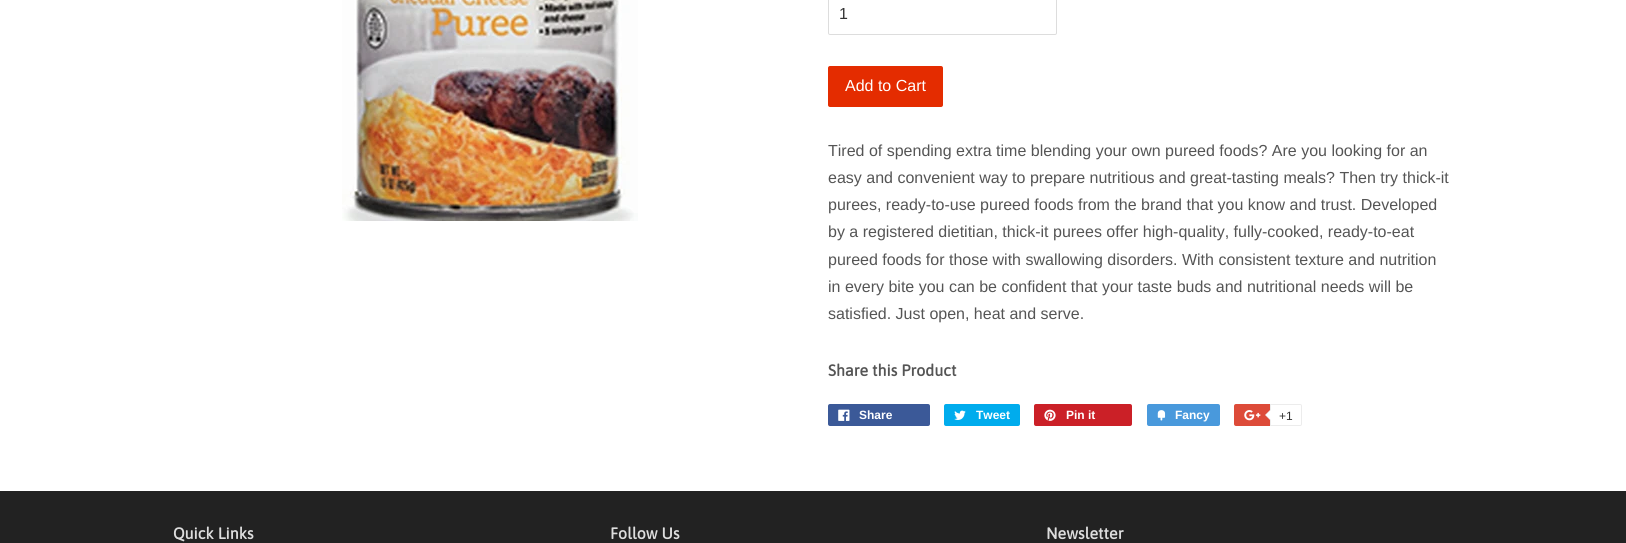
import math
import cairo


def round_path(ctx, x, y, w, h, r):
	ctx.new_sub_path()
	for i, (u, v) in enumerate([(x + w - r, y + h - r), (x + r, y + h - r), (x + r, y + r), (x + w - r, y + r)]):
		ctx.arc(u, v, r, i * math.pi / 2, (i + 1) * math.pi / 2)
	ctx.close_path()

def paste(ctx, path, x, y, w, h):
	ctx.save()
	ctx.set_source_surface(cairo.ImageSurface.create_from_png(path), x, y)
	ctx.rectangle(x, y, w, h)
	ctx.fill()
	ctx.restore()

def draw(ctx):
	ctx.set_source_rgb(1, 1, 1)
	ctx.paint()
	paste(ctx, 'media/1.png', 342, 0, 296, 221)
	round_path(ctx, 828.5, -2.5, 228, 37, 1.5)
	ctx.set_source_rgb(0.867, 0.867, 0.867)
	ctx.set_line_width(1)
	ctx.stroke()
	ctx.select_font_face('Liberation Sans')
	ctx.set_font_size(16)
	ctx.set_source_rgb(0.2, 0.2, 0.2)
	ctx.move_to(839, 19)
	ctx.show_text('1')
	ctx.set_source_rgb(0.894, 0.173, 0)
	round_path(ctx, 828, 66, 115, 41, 2)
	ctx.fill()
	ctx.set_source_rgb(1, 1, 1)
	ctx.move_to(845, 91)
	ctx.show_text('Add to Cart')
	ctx.set_source_rgb(0.333, 0.333, 0.333)
	for x, y, s in [
		(828, 156, 'Tired of spending extra time blending your own pureed foods? Are you looking for an'),
		(828, 183, 'easy and convenient way to prepare nutritious and great-tasting meals? Then try thick-it'),
		(828, 210, 'purees, ready-to-use pureed foods from the brand that you know and trust. Developed'),
		(828, 237, 'by a registered dietitian, thick-it purees offer high-quality, fully-cooked, ready-to-eat'),
		(828, 265, 'pureed foods for those with swallowing disorders. With consistent texture and nutrition'),
		(828, 292, 'in every bite you can be confident that your taste buds and nutritional needs will be'),
		(828, 319, 'satisfied. Just open, heat and serve.'),
	]:
		ctx.move_to(x, y)
		ctx.show_text(s)
	ctx.select_font_face('Asap', cairo.FONT_SLANT_NORMAL, cairo.FONT_WEIGHT_BOLD)
	ctx.move_to(828, 376)
	ctx.show_text('Share this Product')
	ctx.set_source_rgb(0.231, 0.349, 0.596)
	round_path(ctx, 828, 404, 102, 22, 2)
	ctx.fill()
	paste(ctx, 'media/2.png', 838, 409, 12, 12)
	ctx.select_font_face('Liberation Sans', cairo.FONT_SLANT_NORMAL, cairo.FONT_WEIGHT_BOLD)
	ctx.set_font_size(12)
	ctx.set_source_rgb(1, 1, 1)
	ctx.move_to(859, 419)
	ctx.show_text('Share')
	ctx.set_source_rgb(0, 0.675, 0.929)
	round_path(ctx, 944, 404, 76, 22, 2)
	ctx.fill()
	paste(ctx, 'media/3.png', 954, 410, 12, 10)
	ctx.set_source_rgb(1, 1, 1)
	ctx.move_to(976, 419)
	ctx.show_text('Tweet')
	ctx.set_source_rgb(0.796, 0.125, 0.153)
	round_path(ctx, 1034, 404, 98, 22, 2)
	ctx.fill()
	paste(ctx, 'media/4.png', 1044, 409, 12, 12)
	ctx.set_source_rgb(1, 1, 1)
	ctx.move_to(1066, 419)
	ctx.show_text('Pin it')
	ctx.set_source_rgb(0.286, 0.6, 0.863)
	round_path(ctx, 1147, 404, 73, 22, 2)
	ctx.fill()
	paste(ctx, 'media/5.png', 1157, 410, 9, 11)
	ctx.set_source_rgb(1, 1, 1)
	ctx.move_to(1175, 419)
	ctx.show_text('Fancy')
	ctx.set_source_rgb(0.867, 0.294, 0.224)
	round_path(ctx, 1234, 404, 66, 22, 2)
	ctx.fill()
	paste(ctx, 'media/6.png', 1244, 410, 17, 11)
	ctx.set_source_rgb(1, 1, 1)
	ctx.new_path()
	ctx.move_to(1270.5, 404.5)
	ctx.line_to(1300, 404.5)
	ctx.curve_to(1301, 404.5, 1301.5, 405, 1301.5, 406)
	ctx.line_to(1301.5, 424)
	ctx.curve_to(1301.5, 425, 1301, 425.5, 1300, 425.5)
	ctx.line_to(1270.5, 425.5)
	ctx.close_path()
	ctx.fill_preserve()
	ctx.set_source_rgb(0.925, 0.925, 0.925)
	ctx.stroke()
	ctx.new_path()
	ctx.move_to(1271, 409)
	ctx.line_to(1271, 421)
	ctx.line_to(1265, 415)
	ctx.close_path()
	ctx.fill()
	ctx.set_source_rgb(1, 1, 1)
	ctx.new_path()
	ctx.move_to(1272, 409)
	ctx.line_to(1272, 421)
	ctx.line_to(1266, 415)
	ctx.close_path()
	ctx.fill()
	ctx.select_font_face('Liberation Sans')
	ctx.set_source_rgb(0.2, 0.2, 0.2)
	ctx.move_to(1279, 420)
	ctx.show_text('+1')
	ctx.set_source_rgb(0.133, 0.133, 0.133)
	ctx.rectangle(0, 491, 1626, 52)
	ctx.fill()
	ctx.select_font_face('Asap', cairo.FONT_SLANT_NORMAL, cairo.FONT_WEIGHT_BOLD)
	ctx.set_font_size(16)
	ctx.set_source_rgb(0.867, 0.867, 0.867)
	for x, y, s in [
		(173, 539, 'Quick Links'),
		(610, 539, 'Follow Us'),
		(1046, 539, 'Newsletter'),
	]:
		ctx.move_to(x, y)
		ctx.show_text(s)


surface = cairo.ImageSurface(cairo.FORMAT_RGB24, 1626, 543)
ctx = cairo.Context(surface)
options = cairo.FontOptions()
options.set_hint_metrics(cairo.HINT_METRICS_OFF)
options.set_hint_style(cairo.HINT_STYLE_NONE)
ctx.set_font_options(options)
ctx.set_miter_limit(4)
draw(ctx)
surface.write_to_png('image.png')
